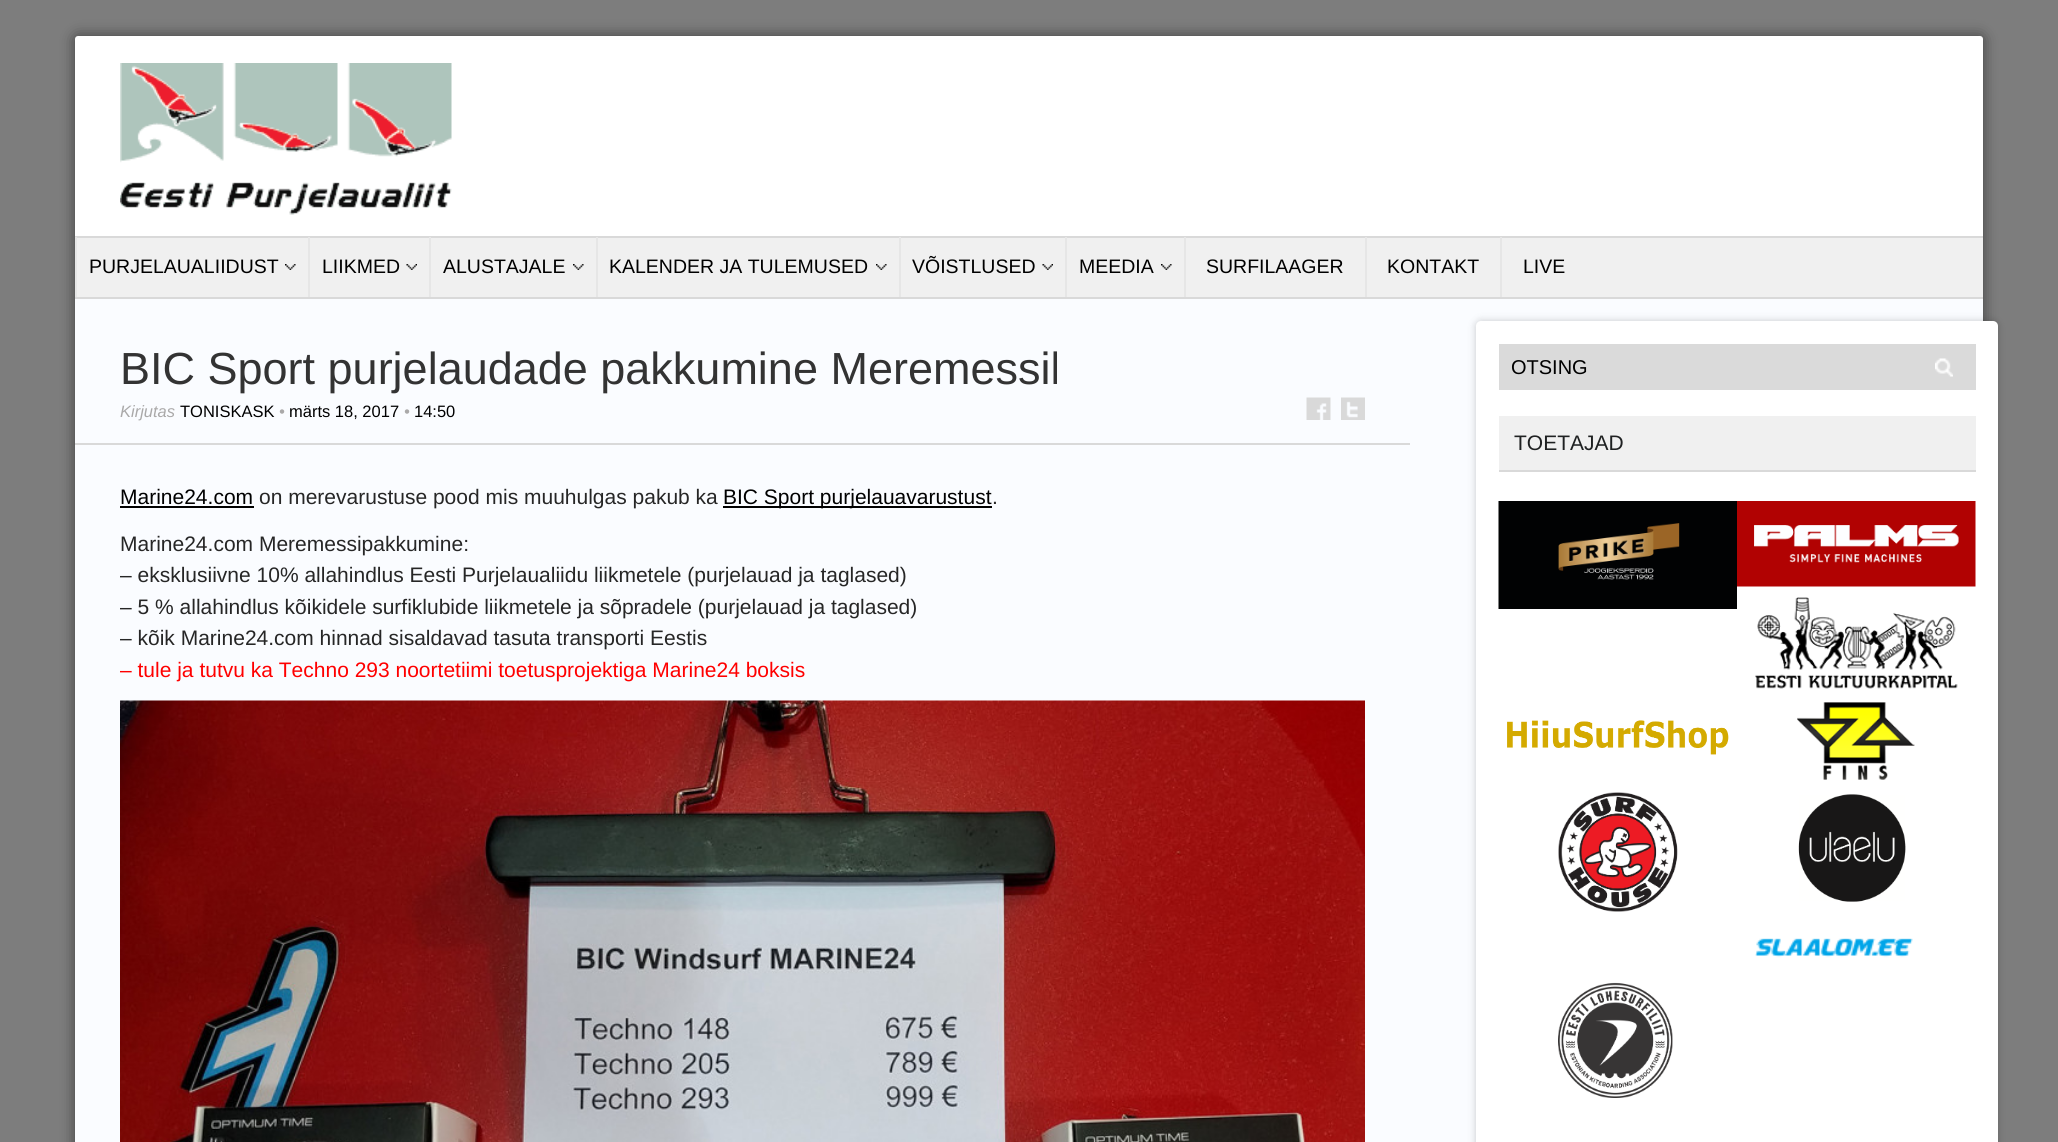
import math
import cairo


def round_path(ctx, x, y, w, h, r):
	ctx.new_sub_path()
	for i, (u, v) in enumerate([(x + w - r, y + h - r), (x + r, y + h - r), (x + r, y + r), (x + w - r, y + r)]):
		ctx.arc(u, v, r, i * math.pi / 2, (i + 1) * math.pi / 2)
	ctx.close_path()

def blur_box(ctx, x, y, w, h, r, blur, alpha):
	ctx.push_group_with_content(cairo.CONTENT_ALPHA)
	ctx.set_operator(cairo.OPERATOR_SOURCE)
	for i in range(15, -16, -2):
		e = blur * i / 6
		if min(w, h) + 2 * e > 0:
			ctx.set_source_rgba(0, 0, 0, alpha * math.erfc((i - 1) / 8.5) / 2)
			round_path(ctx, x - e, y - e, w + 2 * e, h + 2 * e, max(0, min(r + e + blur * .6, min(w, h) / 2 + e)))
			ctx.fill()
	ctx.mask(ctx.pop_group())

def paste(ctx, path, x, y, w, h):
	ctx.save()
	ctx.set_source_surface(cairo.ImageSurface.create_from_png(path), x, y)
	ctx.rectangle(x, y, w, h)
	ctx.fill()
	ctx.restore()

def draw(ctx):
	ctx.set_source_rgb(0.49, 0.49, 0.49)
	ctx.paint()
	ctx.set_source_rgb(0, 0, 0)
	blur_box(ctx, 75, 36, 1908, 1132, 3, 7.5, 0.5)
	ctx.set_source_rgb(1, 1, 1)
	round_path(ctx, 75, 36, 1908, 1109, 3)
	ctx.fill()
	paste(ctx, 'media/1.png', 120, 63, 332, 152)
	ctx.set_source_rgb(0.941, 0.941, 0.941)
	ctx.rectangle(77, 238, 1906, 59)
	ctx.fill()
	ctx.set_source_rgb(0.851, 0.851, 0.851)
	ctx.rectangle(75, 236, 1908, 2)
	ctx.rectangle(75, 297, 1908, 2)
	ctx.fill()
	ctx.set_source_rgb(0.902, 0.902, 0.902)
	ctx.rectangle(75, 237, 2, 60)
	ctx.fill()
	paste(ctx, 'media/2.png', 285, 264, 11, 6)
	ctx.select_font_face('Liberation Sans')
	ctx.set_font_size(19.5)
	ctx.set_source_rgb(0, 0, 0)
	ctx.move_to(89, 273)
	ctx.show_text('PURJELAUALIIDUST')
	ctx.set_source_rgb(0.902, 0.902, 0.902)
	ctx.rectangle(308, 237, 2, 60)
	ctx.fill()
	paste(ctx, 'media/3.png', 406, 264, 11, 6)
	ctx.set_source_rgb(0, 0, 0)
	ctx.move_to(322, 273)
	ctx.show_text('LIIKMED')
	ctx.set_source_rgb(0.902, 0.902, 0.902)
	ctx.rectangle(429, 237, 2, 60)
	ctx.fill()
	paste(ctx, 'media/2.png', 573, 264, 11, 6)
	ctx.set_source_rgb(0, 0, 0)
	ctx.move_to(443, 273)
	ctx.show_text('ALUSTAJALE')
	ctx.set_source_rgb(0.902, 0.902, 0.902)
	ctx.rectangle(596, 237, 2, 60)
	ctx.fill()
	paste(ctx, 'media/4.png', 876, 264, 11, 6)
	ctx.set_source_rgb(0, 0, 0)
	ctx.move_to(609, 273)
	ctx.show_text('KALENDER JA TULEMUSED')
	ctx.set_source_rgb(0.902, 0.902, 0.902)
	ctx.rectangle(899, 237, 2, 60)
	ctx.fill()
	paste(ctx, 'media/3.png', 1042, 264, 11, 6)
	ctx.set_source_rgb(0, 0, 0)
	ctx.move_to(912, 273)
	ctx.show_text('VÕISTLUSED')
	ctx.set_source_rgb(0.902, 0.902, 0.902)
	ctx.rectangle(1065, 237, 2, 60)
	ctx.fill()
	paste(ctx, 'media/2.png', 1161, 264, 11, 6)
	ctx.set_source_rgb(0, 0, 0)
	ctx.move_to(1079, 273)
	ctx.show_text('MEEDIA')
	ctx.set_source_rgb(0.902, 0.902, 0.902)
	ctx.rectangle(1184, 237, 2, 60)
	ctx.fill()
	ctx.set_source_rgb(0, 0, 0)
	ctx.move_to(1206, 273)
	ctx.show_text('SURFILAAGER')
	ctx.set_source_rgb(0.902, 0.902, 0.902)
	ctx.rectangle(1365, 237, 2, 60)
	ctx.fill()
	ctx.set_source_rgb(0, 0, 0)
	ctx.move_to(1387, 273)
	ctx.show_text('KONTAKT')
	ctx.set_source_rgb(0.902, 0.902, 0.902)
	ctx.rectangle(1500, 237, 2, 60)
	ctx.fill()
	ctx.set_source_rgb(0, 0, 0)
	ctx.move_to(1523, 273)
	ctx.show_text('LIVE')
	ctx.set_source_rgb(0.98, 0.988, 1)
	ctx.rectangle(75, 299, 1908, 843)
	ctx.fill()
	ctx.set_source_rgb(0.851, 0.851, 0.851)
	ctx.rectangle(75, 443, 1335, 2)
	ctx.fill()
	ctx.set_font_size(45)
	ctx.set_source_rgb(0.2, 0.2, 0.2)
	ctx.move_to(120, 384)
	ctx.show_text('BIC Sport purjelaudade pakkumine Meremessil')
	ctx.select_font_face('Liberation Sans', cairo.FONT_SLANT_ITALIC)
	ctx.set_font_size(16.5)
	ctx.set_source_rgb(0.667, 0.663, 0.663)
	ctx.move_to(120, 417)
	ctx.show_text('Kirjutas')
	ctx.select_font_face('Liberation Sans')
	ctx.set_source_rgb(0, 0, 0)
	ctx.move_to(180, 417)
	ctx.show_text('TONISKASK')
	ctx.select_font_face('Liberation Sans', cairo.FONT_SLANT_ITALIC)
	ctx.set_source_rgb(0.667, 0.663, 0.663)
	ctx.move_to(279, 417)
	ctx.show_text('•')
	ctx.select_font_face('Liberation Sans')
	ctx.set_source_rgb(0, 0, 0)
	ctx.move_to(289, 417)
	ctx.show_text('märts 18, 2017')
	ctx.select_font_face('Liberation Sans', cairo.FONT_SLANT_ITALIC)
	ctx.set_source_rgb(0.667, 0.663, 0.663)
	ctx.move_to(404, 417)
	ctx.show_text('•')
	ctx.select_font_face('Liberation Sans')
	ctx.set_source_rgb(0, 0, 0)
	ctx.move_to(414, 417)
	ctx.show_text('14:50')
	paste(ctx, 'media/5.png', 1306, 397, 25, 23)
	paste(ctx, 'media/6.png', 1341, 397, 24, 23)
	ctx.set_font_size(21)
	ctx.move_to(120, 504)
	ctx.show_text('Marine24.com')
	ctx.rectangle(120, 506, 134, 2)
	ctx.fill()
	ctx.set_source_rgb(0.149, 0.149, 0.149)
	ctx.move_to(259, 504)
	ctx.show_text('on merevarustuse pood mis muuhulgas pakub ka')
	ctx.set_source_rgb(0, 0, 0)
	ctx.rectangle(723, 506, 269, 2)
	ctx.fill()
	ctx.move_to(723, 504)
	ctx.show_text('BIC Sport purjelauavarustust')
	ctx.set_source_rgb(0.149, 0.149, 0.149)
	for x, y, s in [
		(992, 504, '.'),
		(120, 551, 'Marine24.com Meremessipakkumine:'),
		(120, 582, '– eksklusiivne 10% allahindlus Eesti Purjelaualiidu liikmetele (purjelauad ja taglased)'),
		(120, 614, '– 5 % allahindlus kõikidele surfiklubide liikmetele ja sõpradele (purjelauad ja taglased)'),
		(120, 645, '– kõik Marine24.com hinnad sisaldavad tasuta transporti Eestis'),
	]:
		ctx.move_to(x, y)
		ctx.show_text(s)
	ctx.set_source_rgb(1, 0, 0)
	ctx.move_to(120, 677)
	ctx.show_text('– tule ja tutvu ka Techno 293 noortetiimi toetusprojektiga Marine24 boksis')
	paste(ctx, 'media/7.png', 120, 700, 1245, 442)
	ctx.set_source_rgb(0, 0, 0)
	blur_box(ctx, 1476, 321, 522, 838, 5, 4, 0.2)
	ctx.set_source_rgb(1, 1, 1)
	round_path(ctx, 1476, 321, 522, 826, 5)
	ctx.fill()
	ctx.set_source_rgb(0.855, 0.855, 0.855)
	ctx.rectangle(1499, 344, 477, 46)
	ctx.fill()
	ctx.set_font_size(20)
	ctx.set_source_rgb(0, 0, 0)
	ctx.move_to(1511, 374)
	ctx.show_text('OTSING')
	paste(ctx, 'media/8.png', 1935, 358, 18, 19)
	ctx.set_source_rgb(0.941, 0.941, 0.941)
	ctx.rectangle(1499, 416, 477, 54)
	ctx.fill()
	ctx.set_source_rgb(0.851, 0.851, 0.851)
	ctx.rectangle(1499, 470, 477, 2)
	ctx.fill()
	ctx.set_font_size(21)
	ctx.set_source_rgb(0.122, 0.129, 0.133)
	ctx.move_to(1514, 450)
	ctx.show_text('TOETAJAD')
	paste(ctx, 'media/9.png', 1498, 501, 239, 108)
	paste(ctx, 'media/10.png', 1737, 501, 239, 86)
	paste(ctx, 'media/11.png', 1755, 597, 203, 92)
	paste(ctx, 'media/12.png', 1507, 720, 222, 35)
	paste(ctx, 'media/13.png', 1797, 702, 118, 78)
	paste(ctx, 'media/14.png', 1558, 792, 120, 120)
	paste(ctx, 'media/15.png', 1798, 794, 108, 108)
	paste(ctx, 'media/16.png', 1755, 938, 158, 20)
	paste(ctx, 'media/17.png', 1558, 982, 115, 116)


surface = cairo.ImageSurface(cairo.FORMAT_RGB24, 2058, 1142)
ctx = cairo.Context(surface)
options = cairo.FontOptions()
options.set_hint_metrics(cairo.HINT_METRICS_OFF)
options.set_hint_style(cairo.HINT_STYLE_NONE)
ctx.set_font_options(options)
ctx.set_miter_limit(4)
draw(ctx)
surface.write_to_png('image.png')
